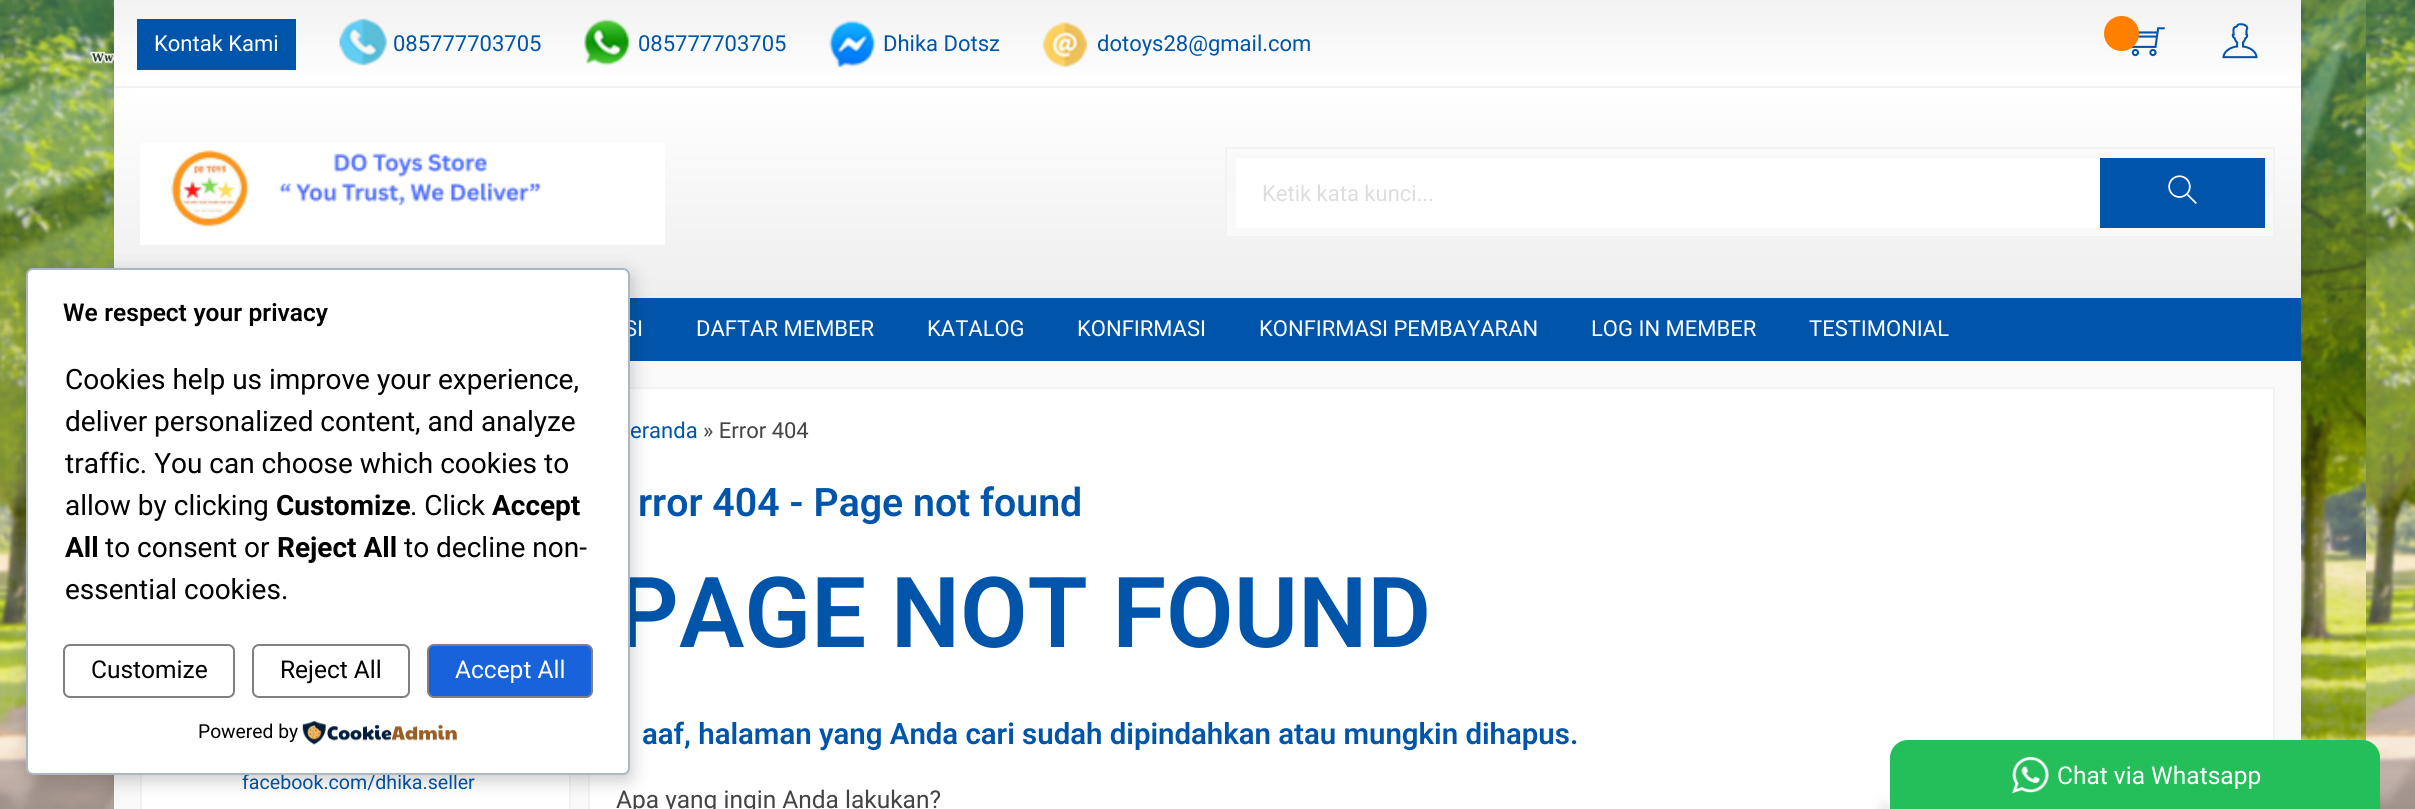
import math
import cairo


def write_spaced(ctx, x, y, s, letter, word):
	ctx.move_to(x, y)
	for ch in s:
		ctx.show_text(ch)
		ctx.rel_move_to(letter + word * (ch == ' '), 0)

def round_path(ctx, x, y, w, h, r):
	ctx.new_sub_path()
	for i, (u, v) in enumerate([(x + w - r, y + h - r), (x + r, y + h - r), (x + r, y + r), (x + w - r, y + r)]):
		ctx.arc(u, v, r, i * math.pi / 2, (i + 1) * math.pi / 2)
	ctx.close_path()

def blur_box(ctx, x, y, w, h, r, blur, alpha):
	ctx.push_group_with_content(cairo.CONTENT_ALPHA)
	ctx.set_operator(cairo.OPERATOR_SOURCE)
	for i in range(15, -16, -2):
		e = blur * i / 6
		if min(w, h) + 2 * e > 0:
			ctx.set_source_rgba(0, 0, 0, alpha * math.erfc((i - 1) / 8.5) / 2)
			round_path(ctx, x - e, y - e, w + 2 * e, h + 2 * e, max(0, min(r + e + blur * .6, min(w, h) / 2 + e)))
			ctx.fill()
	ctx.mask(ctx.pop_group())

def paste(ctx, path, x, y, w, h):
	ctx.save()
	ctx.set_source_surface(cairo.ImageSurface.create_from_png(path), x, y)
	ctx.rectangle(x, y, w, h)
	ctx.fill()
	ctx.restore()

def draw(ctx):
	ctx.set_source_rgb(1, 1, 1)
	ctx.paint()
	paste(ctx, 'media/1.png', 0, 0, 2415, 809)
	ctx.set_source_rgb(0, 0, 0)
	blur_box(ctx, 114, 0, 2187, 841, 0, 10.5, 0.15)
	gradient = cairo.LinearGradient(1208, 0, 1208, 86)
	gradient.add_color_stop_rgba(0, 0.949, 0.949, 0.949, 1)
	gradient.add_color_stop_rgba(1, 1, 1, 1, 1)
	ctx.set_source(gradient)
	ctx.rectangle(114, 0, 2187, 86)
	ctx.fill()
	gradient = cairo.LinearGradient(1208, 86, 1208, 172)
	gradient.add_color_stop_rgba(0, 0.949, 0.949, 0.949, 1)
	gradient.add_color_stop_rgba(1, 1, 1, 1, 1)
	ctx.set_source(gradient)
	ctx.rectangle(114, 86, 2187, 2)
	ctx.fill()
	ctx.set_source_rgb(0, 0.333, 0.667)
	ctx.rectangle(137, 19, 159, 51)
	ctx.fill()
	ctx.select_font_face('Roboto')
	ctx.set_font_size(22)
	ctx.set_source_rgb(1, 1, 1)
	ctx.move_to(154, 51)
	ctx.show_text('Kontak Kami')
	paste(ctx, 'media/2.png', 339, 18, 49, 48)
	ctx.set_source_rgb(0, 0.333, 0.667)
	ctx.move_to(393, 51)
	ctx.show_text('085777703705')
	paste(ctx, 'media/3.png', 584, 18, 47, 48)
	ctx.move_to(638, 51)
	ctx.show_text('085777703705')
	paste(ctx, 'media/4.png', 829, 20, 47, 48)
	ctx.move_to(883, 51)
	ctx.show_text('Dhika Dotsz')
	paste(ctx, 'media/5.png', 1042, 21, 46, 47)
	ctx.move_to(1097, 51)
	ctx.show_text('dotoys28@gmail.com')
	paste(ctx, 'media/6.png', 2131, 27, 34, 30)
	ctx.set_source_rgb(1, 0.502, 0)
	ctx.arc(2121.5, 33.5, 17.5, 0, 2 * math.pi)
	ctx.fill()
	paste(ctx, 'media/7.png', 2222, 23, 36, 36)
	gradient = cairo.LinearGradient(1208, 87, 1208, 298)
	gradient.add_color_stop_rgba(0, 1, 1, 1, 1)
	gradient.add_color_stop_rgba(1, 0.933, 0.933, 0.933, 1)
	ctx.set_source(gradient)
	ctx.rectangle(114, 88, 2187, 210)
	ctx.fill()
	paste(ctx, 'media/8.png', 140, 143, 525, 102)
	ctx.set_source_rgb(0.976, 0.976, 0.976)
	ctx.rectangle(1227, 193, 1046, 43)
	ctx.fill()
	ctx.rectangle(1226, 148, 1048, 89)
	ctx.set_source_rgb(0.949, 0.949, 0.949)
	ctx.stroke()
	ctx.set_source_rgb(1, 1, 1)
	ctx.rectangle(1236, 158, 864, 70)
	ctx.fill()
	ctx.set_source_rgb(0.867, 0.867, 0.867)
	ctx.move_to(1262, 201)
	ctx.show_text('Ketik kata kunci...')
	ctx.set_source_rgb(0, 0.333, 0.667)
	ctx.rectangle(2100, 158, 165, 70)
	ctx.fill()
	paste(ctx, 'media/9.png', 2168, 175, 29, 29)
	ctx.rectangle(630, 298, 1671, 63)
	ctx.fill()
	ctx.set_source_rgb(1, 1, 1)
	for x, y, s in [
		(624, 336, 'SI'),
		(696, 336, 'DAFTAR MEMBER'),
		(927, 336, 'KATALOG'),
		(1077, 336, 'KONFIRMASI'),
		(1259, 336, 'KONFIRMASI PEMBAYARAN'),
		(1591, 336, 'LOG IN MEMBER'),
		(1809, 336, 'TESTIMONIAL'),
	]:
		ctx.move_to(x, y)
		ctx.show_text(s)
	ctx.set_source_rgb(0.976, 0.976, 0.976)
	ctx.rectangle(114, 361, 2187, 448)
	ctx.fill()
	ctx.set_source_rgb(1, 1, 1)
	ctx.rectangle(142, 775, 427, 34)
	ctx.fill()
	ctx.rectangle(141, 663, 429, 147)
	ctx.set_source_rgb(0.949, 0.949, 0.949)
	ctx.stroke()
	ctx.set_font_size(19.6)
	ctx.set_source_rgb(0, 0.333, 0.667)
	ctx.move_to(242, 789)
	ctx.show_text('facebook.com/dhika.seller')
	ctx.set_source_rgb(1, 1, 1)
	ctx.rectangle(589, 388, 1685, 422)
	ctx.fill_preserve()
	ctx.set_source_rgb(0.949, 0.949, 0.949)
	ctx.stroke()
	ctx.set_font_size(22)
	ctx.set_source_rgb(0, 0.333, 0.667)
	ctx.move_to(630, 438)
	ctx.show_text('eranda')
	ctx.set_source_rgb(0.267, 0.267, 0.267)
	ctx.move_to(703, 438)
	ctx.show_text('» Error 404')
	ctx.select_font_face('Roboto SemiBold')
	ctx.set_font_size(39.25)
	ctx.set_source_rgb(0, 0.333, 0.667)
	ctx.move_to(638, 516)
	ctx.show_text('rror 404 - Page not found')
	ctx.set_font_size(98)
	ctx.move_to(616, 647)
	ctx.show_text('PAGE NOT FOUND')
	ctx.set_font_size(29.4)
	ctx.move_to(642, 744)
	ctx.show_text('aaf, halaman yang Anda cari sudah dipindahkan atau mungkin dihapus.')
	ctx.select_font_face('Roboto')
	ctx.set_font_size(24.5)
	ctx.set_source_rgb(0.267, 0.267, 0.267)
	ctx.move_to(616, 808)
	ctx.show_text('Apa yang ingin Anda lakukan?')
	ctx.set_source_rgb(0, 0, 0)
	blur_box(ctx, 28, 273, 604, 508, 7, 9, 0.2)
	ctx.set_source_rgb(1, 1, 1)
	round_path(ctx, 27, 269, 602, 505, 6)
	ctx.fill_preserve()
	ctx.set_source_rgb(0.671, 0.722, 0.765)
	ctx.stroke()
	ctx.select_font_face('Roboto SemiBold')
	ctx.set_source_rgb(0, 0, 0)
	write_spaced(ctx, 63, 321, 'We respect your privacy', 0, 0.5)
	ctx.select_font_face('Roboto')
	ctx.set_font_size(28)
	for x, y, s in [
		(65, 389, 'Cookies help us improve your experience,'),
		(65, 431, 'deliver personalized content, and analyze'),
		(65, 473, 'traffic. You can choose which cookies to'),
		(65, 515, 'allow by clicking'),
	]:
		ctx.move_to(x, y)
		ctx.show_text(s)
	ctx.select_font_face('Roboto', cairo.FONT_SLANT_NORMAL, cairo.FONT_WEIGHT_BOLD)
	ctx.move_to(276, 515)
	ctx.show_text('Customize')
	ctx.select_font_face('Roboto')
	ctx.move_to(410, 515)
	ctx.show_text('. Click')
	ctx.select_font_face('Roboto', cairo.FONT_SLANT_NORMAL, cairo.FONT_WEIGHT_BOLD)
	ctx.move_to(492, 515)
	ctx.show_text('Accept')
	ctx.move_to(65, 557)
	ctx.show_text('All')
	ctx.select_font_face('Roboto')
	ctx.move_to(105, 557)
	ctx.show_text('to consent or')
	ctx.select_font_face('Roboto', cairo.FONT_SLANT_NORMAL, cairo.FONT_WEIGHT_BOLD)
	ctx.move_to(277, 557)
	ctx.show_text('Reject All')
	ctx.select_font_face('Roboto')
	ctx.move_to(404, 557)
	ctx.show_text('to decline non-')
	ctx.move_to(65, 599)
	ctx.show_text('essential cookies.')
	round_path(ctx, 64, 645, 170, 52, 6)
	ctx.set_source_rgb(0.502, 0.502, 0.502)
	ctx.stroke()
	ctx.set_font_size(24.5)
	ctx.set_source_rgb(0, 0, 0)
	ctx.move_to(91, 678)
	ctx.show_text('Customize')
	round_path(ctx, 253, 645, 156, 52, 6)
	ctx.set_source_rgb(0.502, 0.502, 0.502)
	ctx.stroke()
	ctx.set_source_rgb(0, 0, 0)
	ctx.move_to(280, 678)
	ctx.show_text('Reject All')
	ctx.set_source_rgb(0.094, 0.388, 0.863)
	round_path(ctx, 428, 645, 164, 52, 6)
	ctx.fill_preserve()
	ctx.set_source_rgb(0.502, 0.502, 0.502)
	ctx.stroke()
	ctx.set_source_rgb(1, 1, 1)
	ctx.move_to(455, 678)
	ctx.show_text('Accept All')
	ctx.set_font_size(19.25)
	ctx.set_source_rgb(0, 0, 0)
	ctx.move_to(198, 738)
	ctx.show_text('Powered by')
	paste(ctx, 'media/10.png', 302, 720, 155, 25)
	ctx.set_source_rgb(0.2, 0.2, 0.2)
	blur_box(ctx, 1880, 803, 511, 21, 0, 5, 0.09)
	ctx.set_source_rgb(0.141, 0.745, 0.357)
	ctx.new_path()
	ctx.move_to(1908, 740)
	ctx.line_to(2362, 740)
	ctx.curve_to(2372, 740, 2380, 748, 2380, 758)
	ctx.line_to(2380, 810)
	ctx.line_to(1890, 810)
	ctx.line_to(1890, 758)
	ctx.curve_to(1890, 748, 1898, 740, 1908, 740)
	ctx.close_path()
	ctx.fill()
	paste(ctx, 'media/11.png', 2011, 756, 39, 38)
	ctx.set_font_size(24.5)
	ctx.set_source_rgb(1, 1, 1)
	ctx.move_to(2057, 784)
	ctx.show_text('Chat via Whatsapp')


surface = cairo.ImageSurface(cairo.FORMAT_RGB24, 2415, 809)
ctx = cairo.Context(surface)
options = cairo.FontOptions()
options.set_hint_metrics(cairo.HINT_METRICS_OFF)
options.set_hint_style(cairo.HINT_STYLE_NONE)
ctx.set_font_options(options)
ctx.set_miter_limit(4)
draw(ctx)
surface.write_to_png('image.png')
